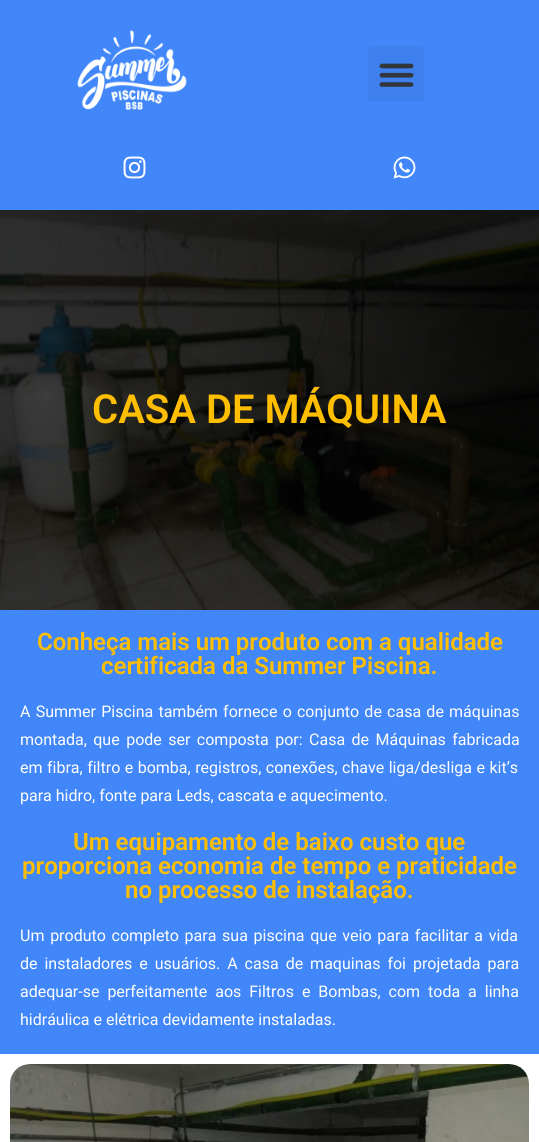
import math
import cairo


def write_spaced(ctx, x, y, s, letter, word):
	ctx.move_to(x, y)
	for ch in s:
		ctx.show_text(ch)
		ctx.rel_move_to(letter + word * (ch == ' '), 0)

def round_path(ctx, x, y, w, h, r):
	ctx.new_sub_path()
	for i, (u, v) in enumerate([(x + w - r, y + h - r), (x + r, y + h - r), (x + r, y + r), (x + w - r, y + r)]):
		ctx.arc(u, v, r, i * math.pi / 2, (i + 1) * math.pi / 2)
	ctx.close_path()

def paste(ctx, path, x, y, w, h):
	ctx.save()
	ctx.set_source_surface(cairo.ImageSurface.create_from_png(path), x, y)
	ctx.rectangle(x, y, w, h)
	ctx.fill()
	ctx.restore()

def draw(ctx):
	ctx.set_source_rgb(1, 1, 1)
	ctx.paint()
	ctx.set_source_rgb(0.255, 0.529, 0.976)
	ctx.rectangle(0, 0, 539, 210)
	ctx.fill()
	paste(ctx, 'media/1.png', 77, 30, 110, 80)
	ctx.set_source_rgb(0.243, 0.502, 0.929)
	round_path(ctx, 368, 46, 56, 56, 3)
	ctx.fill()
	paste(ctx, 'media/2.png', 379, 63, 35, 24)
	paste(ctx, 'media/3.png', 123, 156, 23, 23)
	paste(ctx, 'media/4.png', 393, 156, 23, 23)
	ctx.set_source_rgb(0, 0, 0)
	ctx.rectangle(0, 210, 539, 400)
	ctx.fill()
	paste(ctx, 'media/5.png', 0, 210, 539, 400)
	ctx.select_font_face('Roboto SemiBold')
	ctx.set_font_size(40)
	ctx.set_source_rgb(1, 0.745, 0)
	ctx.move_to(92, 423)
	ctx.show_text('CASA DE MÁQUINA')
	ctx.set_source_rgb(0.255, 0.529, 0.976)
	ctx.rectangle(0, 610, 539, 444)
	ctx.fill()
	ctx.set_font_size(24)
	ctx.set_source_rgb(1, 0.745, 0)
	ctx.move_to(37, 650)
	ctx.show_text('Conheça mais um produto com a qualidade')
	ctx.move_to(101, 674)
	ctx.show_text('certificada da Summer Piscina.')
	ctx.select_font_face('Roboto')
	ctx.set_font_size(16)
	ctx.set_source_rgb(1, 1, 1)
	write_spaced(ctx, 20, 717, 'A Summer Piscina também fornece o conjunto de casa de máquinas', 0, 1.25)
	write_spaced(ctx, 20, 745, 'montada, que pode ser composta por: Casa de Máquinas fabricada', 0, 2.5)
	write_spaced(ctx, 20, 773, 'em fibra, filtro e bomba, registros, conexões, chave liga/desliga e kit’s', 0, 0.5)
	ctx.move_to(20, 801)
	ctx.show_text('para hidro, fonte para Leds, cascata e aquecimento.')
	ctx.select_font_face('Roboto SemiBold')
	ctx.set_font_size(24)
	ctx.set_source_rgb(1, 0.745, 0)
	for x, y, s in [
		(73, 850, 'Um equipamento de baixo custo que'),
		(22, 874, 'proporciona economia de tempo e praticidade'),
		(125, 898, 'no processo de instalação.'),
	]:
		ctx.move_to(x, y)
		ctx.show_text(s)
	ctx.select_font_face('Roboto')
	ctx.set_font_size(16)
	ctx.set_source_rgb(1, 1, 1)
	write_spaced(ctx, 20, 941, 'Um produto completo para sua piscina que veio para facilitar a vida', 0, 1.75)
	write_spaced(ctx, 20, 969, 'de instaladores e usuários. A casa de maquinas foi projetada para', 0, 3)
	write_spaced(ctx, 20, 997, 'adequar-se perfeitamente aos Filtros e Bombas, com toda a linha', 0, 4)
	ctx.move_to(20, 1025)
	ctx.show_text('hidráulica e elétrica devidamente instaladas.')
	paste(ctx, 'media/6.png', 10, 1064, 519, 78)


surface = cairo.ImageSurface(cairo.FORMAT_RGB24, 539, 1142)
ctx = cairo.Context(surface)
options = cairo.FontOptions()
options.set_hint_metrics(cairo.HINT_METRICS_OFF)
options.set_hint_style(cairo.HINT_STYLE_NONE)
ctx.set_font_options(options)
ctx.set_miter_limit(4)
draw(ctx)
surface.write_to_png('image.png')
